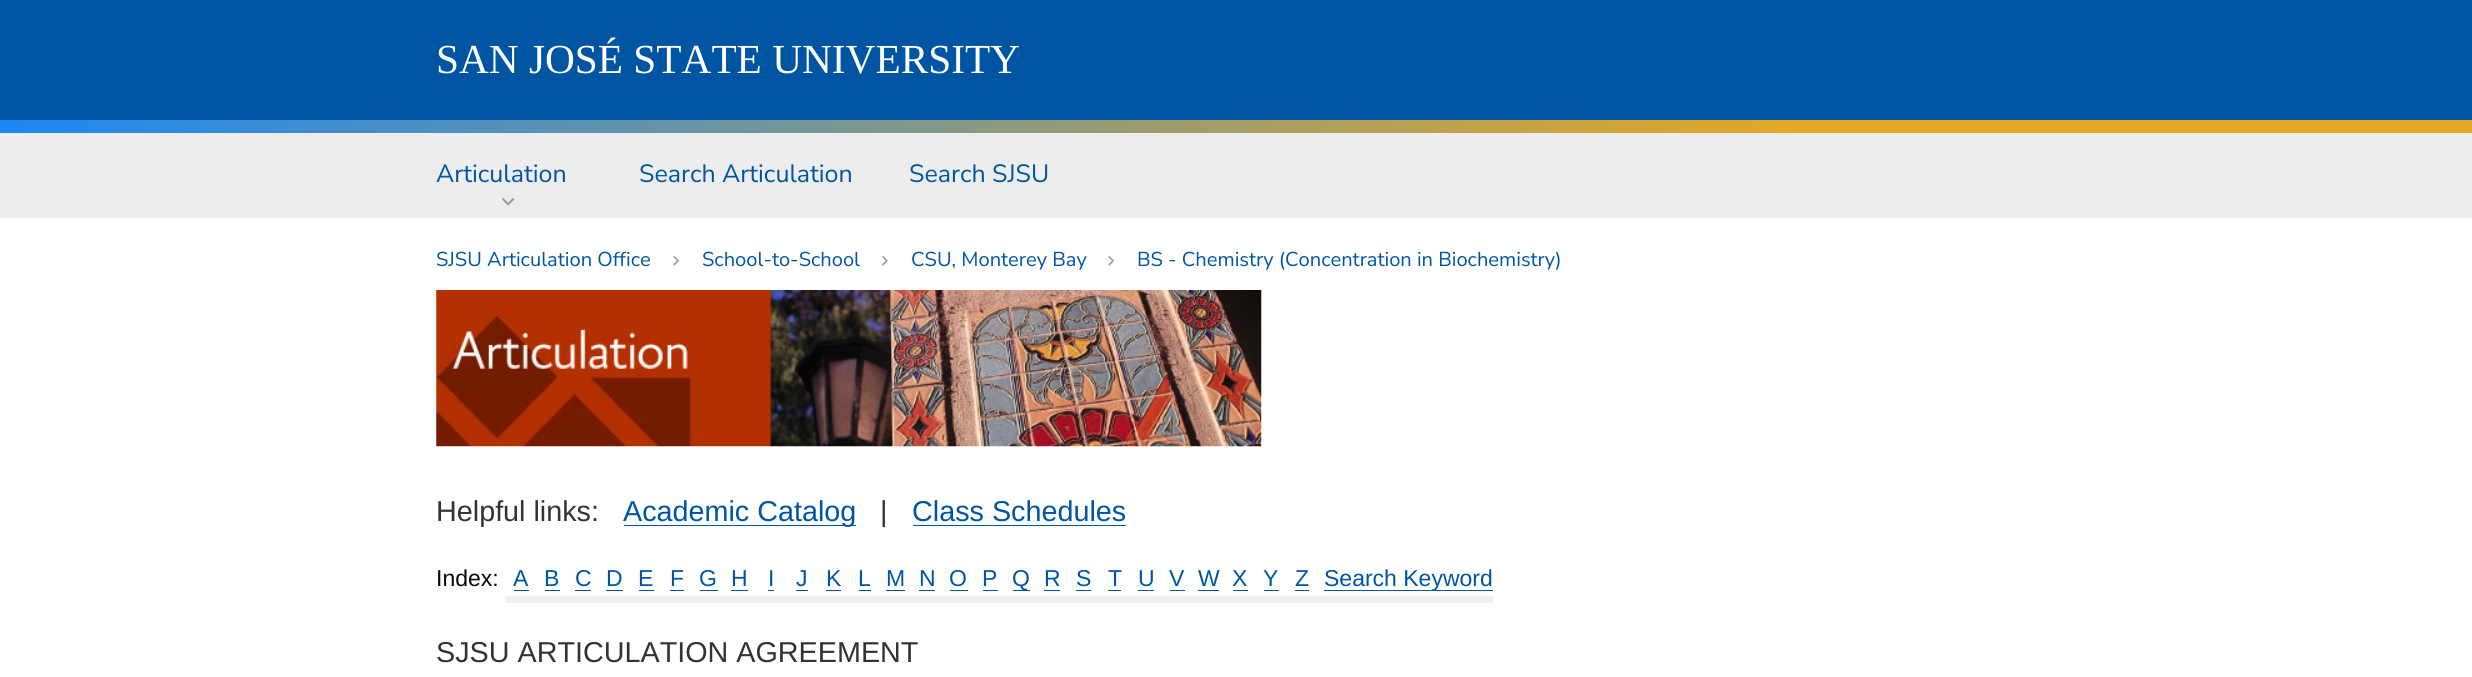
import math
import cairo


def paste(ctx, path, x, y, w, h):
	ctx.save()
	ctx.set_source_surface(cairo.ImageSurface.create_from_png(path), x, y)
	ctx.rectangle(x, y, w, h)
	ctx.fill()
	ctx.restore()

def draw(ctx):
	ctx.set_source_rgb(1, 1, 1)
	ctx.paint()
	ctx.set_source_rgb(0, 0.333, 0.635)
	ctx.rectangle(0, 0, 2472, 120)
	ctx.fill()
	ctx.select_font_face('Liberation Serif')
	ctx.set_font_size(41.3)
	ctx.set_source_rgb(1, 1, 1)
	ctx.move_to(436, 73)
	ctx.show_text('SAN JOSÉ STATE UNIVERSITY')
	gradient = cairo.LinearGradient(0, 126, 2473, 126)
	gradient.add_color_stop_rgba(0, 0.11, 0.533, 0.957, 1)
	gradient.add_color_stop_rgba(0.73, 0.898, 0.659, 0.137, 1)
	ctx.set_source(gradient)
	ctx.rectangle(0, 120, 2472, 13)
	ctx.fill()
	ctx.set_source_rgb(0.929, 0.929, 0.929)
	ctx.rectangle(0, 133, 2472, 85)
	ctx.fill()
	paste(ctx, 'media/1.png', 502, 198, 13, 8)
	ctx.select_font_face('Nunito Sans')
	ctx.set_font_size(25)
	ctx.set_source_rgb(0, 0.333, 0.635)
	for x, y, s in [
		(436, 182, 'Articulation'),
		(639, 182, 'Search Articulation'),
		(909, 182, 'Search SJSU'),
	]:
		ctx.move_to(x, y)
		ctx.show_text(s)
	ctx.set_font_size(20.1)
	ctx.move_to(436, 266)
	ctx.show_text('SJSU Articulation Office')
	paste(ctx, 'media/2.png', 673, 255, 6, 11)
	ctx.move_to(702, 266)
	ctx.show_text('School-to-School')
	paste(ctx, 'media/3.png', 882, 255, 6, 11)
	ctx.move_to(911, 266)
	ctx.show_text('CSU, Monterey Bay')
	paste(ctx, 'media/2.png', 1108, 255, 6, 11)
	ctx.move_to(1137, 266)
	ctx.show_text('BS - Chemistry (Concentration in Biochemistry)')
	paste(ctx, 'media/4.png', 436, 290, 826, 157)
	ctx.select_font_face('Liberation Sans')
	ctx.set_font_size(28.75)
	ctx.set_source_rgb(0.2, 0.2, 0.2)
	ctx.move_to(436, 521)
	ctx.show_text('Helpful links:')
	ctx.set_source_rgb(0, 0.333, 0.635)
	ctx.rectangle(624, 525, 232, 1)
	ctx.fill()
	ctx.move_to(623, 521)
	ctx.show_text('Academic Catalog')
	ctx.set_source_rgb(0.2, 0.2, 0.2)
	ctx.move_to(880, 521)
	ctx.show_text('|')
	ctx.set_source_rgb(0, 0.333, 0.635)
	ctx.move_to(912, 521)
	ctx.show_text('Class Schedules')
	ctx.rectangle(913, 525, 213, 1)
	ctx.fill()
	ctx.set_font_size(23)
	ctx.set_source_rgb(0.039, 0.039, 0.039)
	ctx.move_to(436, 586)
	ctx.show_text('Index:')
	ctx.set_source_rgb(0, 0.333, 0.635)
	ctx.move_to(513, 586)
	ctx.show_text('A')
	ctx.rectangle(514, 590, 15, 1)
	ctx.fill()
	ctx.move_to(544, 586)
	ctx.show_text('B')
	ctx.rectangle(545, 590, 15, 1)
	ctx.fill()
	ctx.move_to(575, 586)
	ctx.show_text('C')
	ctx.rectangle(575, 590, 16, 1)
	ctx.fill()
	ctx.move_to(606, 586)
	ctx.show_text('D')
	ctx.rectangle(606, 590, 17, 1)
	ctx.fill()
	ctx.move_to(638, 586)
	ctx.show_text('E')
	ctx.rectangle(639, 590, 15, 1)
	ctx.fill()
	ctx.move_to(670, 586)
	ctx.show_text('F')
	ctx.rectangle(670, 590, 14, 1)
	ctx.fill()
	ctx.move_to(699, 586)
	ctx.show_text('G')
	ctx.rectangle(700, 590, 18, 1)
	ctx.fill()
	ctx.move_to(731, 586)
	ctx.show_text('H')
	ctx.rectangle(731, 590, 17, 1)
	ctx.fill()
	ctx.move_to(768, 586)
	ctx.show_text('I')
	ctx.rectangle(768, 590, 6, 1)
	ctx.fill()
	ctx.move_to(796, 586)
	ctx.show_text('J')
	ctx.rectangle(796, 590, 12, 1)
	ctx.fill()
	ctx.move_to(826, 586)
	ctx.show_text('K')
	ctx.rectangle(826, 590, 15, 1)
	ctx.fill()
	ctx.move_to(858, 586)
	ctx.show_text('L')
	ctx.rectangle(859, 590, 12, 1)
	ctx.fill()
	ctx.move_to(886, 586)
	ctx.show_text('M')
	ctx.rectangle(886, 590, 19, 1)
	ctx.fill()
	ctx.move_to(919, 586)
	ctx.show_text('N')
	ctx.rectangle(919, 590, 16, 1)
	ctx.fill()
	ctx.move_to(949, 586)
	ctx.show_text('O')
	ctx.rectangle(950, 590, 18, 1)
	ctx.fill()
	ctx.move_to(982, 586)
	ctx.show_text('P')
	ctx.rectangle(983, 590, 15, 1)
	ctx.fill()
	ctx.rectangle(1013, 590, 17, 1)
	ctx.fill()
	ctx.move_to(1012, 586)
	ctx.show_text('Q')
	ctx.move_to(1044, 586)
	ctx.show_text('R')
	ctx.rectangle(1044, 590, 16, 1)
	ctx.fill()
	ctx.move_to(1076, 586)
	ctx.show_text('S')
	ctx.rectangle(1076, 590, 15, 1)
	ctx.fill()
	ctx.move_to(1108, 586)
	ctx.show_text('T')
	ctx.rectangle(1108, 590, 13, 1)
	ctx.fill()
	ctx.move_to(1138, 586)
	ctx.show_text('U')
	ctx.rectangle(1138, 590, 16, 1)
	ctx.fill()
	ctx.move_to(1169, 586)
	ctx.show_text('V')
	ctx.rectangle(1170, 590, 15, 1)
	ctx.fill()
	ctx.move_to(1198, 586)
	ctx.show_text('W')
	ctx.rectangle(1198, 590, 21, 1)
	ctx.fill()
	ctx.move_to(1232, 586)
	ctx.show_text('X')
	ctx.rectangle(1233, 590, 15, 1)
	ctx.fill()
	ctx.move_to(1263, 586)
	ctx.show_text('Y')
	ctx.rectangle(1264, 590, 15, 1)
	ctx.fill()
	ctx.move_to(1295, 586)
	ctx.show_text('Z')
	ctx.rectangle(1295, 590, 14, 1)
	ctx.fill()
	ctx.rectangle(1324, 590, 169, 1)
	ctx.fill()
	ctx.move_to(1324, 586)
	ctx.show_text('Search Keyword')
	ctx.set_source_rgb(0.945, 0.945, 0.945)
	ctx.rectangle(505, 596, 988, 7)
	ctx.fill()
	ctx.set_font_size(28.75)
	ctx.set_source_rgb(0.2, 0.2, 0.2)
	ctx.move_to(436, 662)
	ctx.show_text('SJSU ARTICULATION AGREEMENT')


surface = cairo.ImageSurface(cairo.FORMAT_RGB24, 2472, 677)
ctx = cairo.Context(surface)
options = cairo.FontOptions()
options.set_hint_metrics(cairo.HINT_METRICS_OFF)
options.set_hint_style(cairo.HINT_STYLE_NONE)
ctx.set_font_options(options)
ctx.set_miter_limit(4)
draw(ctx)
surface.write_to_png('image.png')
